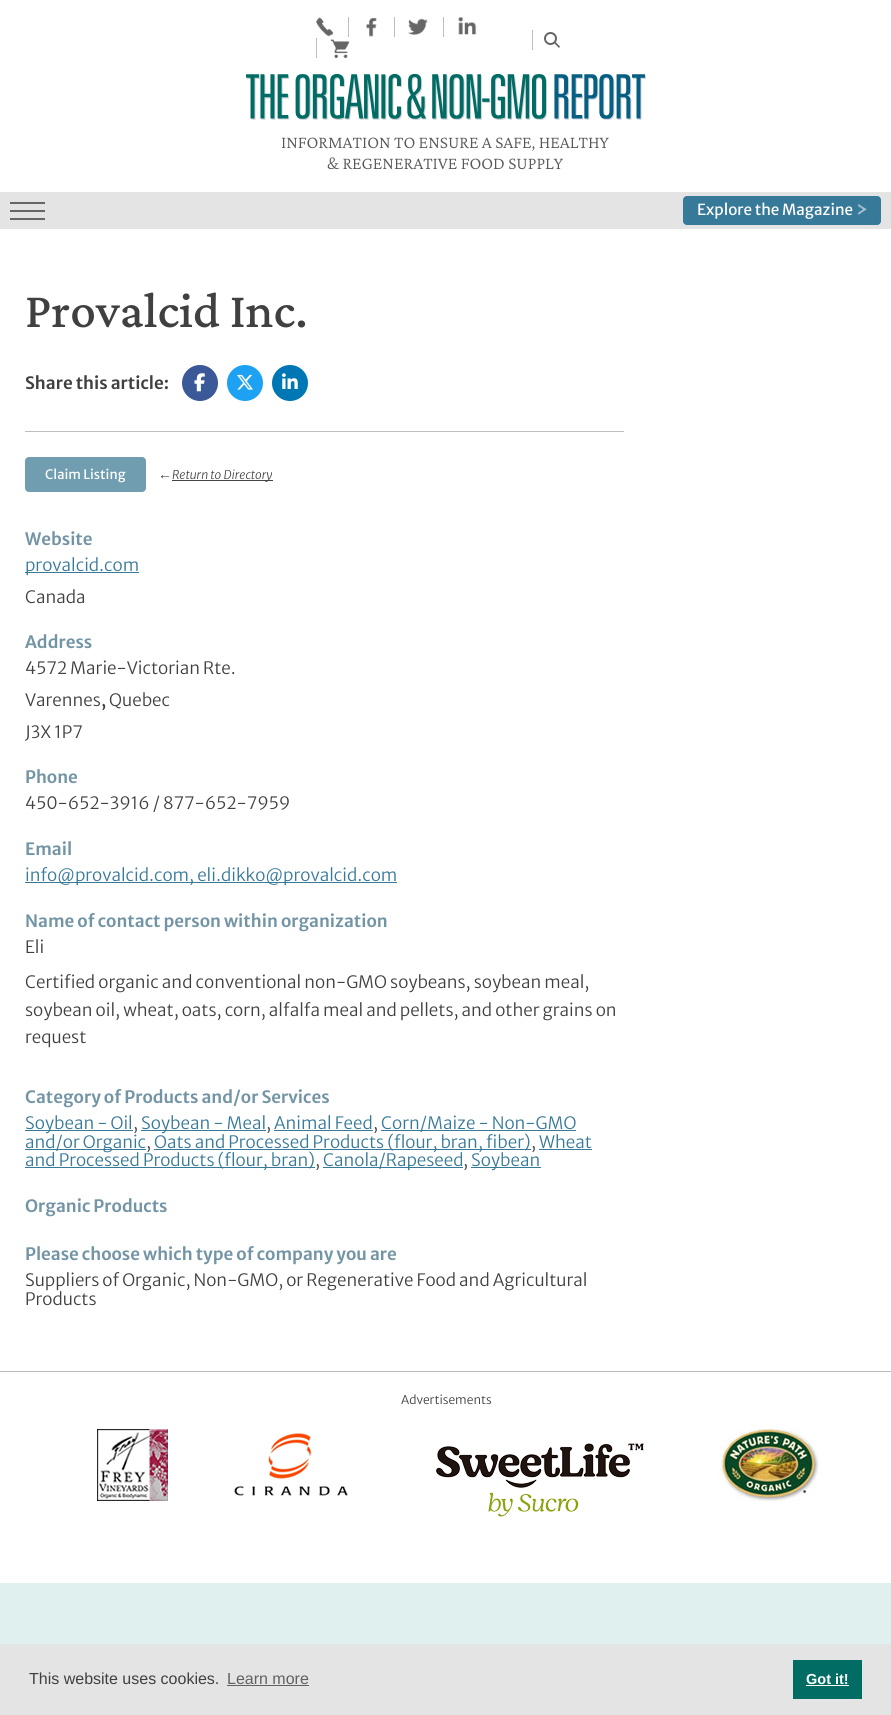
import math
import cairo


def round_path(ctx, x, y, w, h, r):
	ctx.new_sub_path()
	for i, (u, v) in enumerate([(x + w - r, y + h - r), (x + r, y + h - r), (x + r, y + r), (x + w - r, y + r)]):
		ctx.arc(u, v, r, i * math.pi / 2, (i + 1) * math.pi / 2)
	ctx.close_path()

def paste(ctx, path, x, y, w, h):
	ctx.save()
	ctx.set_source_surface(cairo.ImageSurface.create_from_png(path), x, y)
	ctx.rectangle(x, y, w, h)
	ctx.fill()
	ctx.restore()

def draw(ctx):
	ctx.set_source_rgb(1, 1, 1)
	ctx.paint()
	paste(ctx, 'media/1.png', 316, 17, 18, 20)
	ctx.set_source_rgb(0.741, 0.741, 0.741)
	ctx.rectangle(348, 17, 1, 20)
	ctx.fill()
	paste(ctx, 'media/2.png', 366, 18, 11, 19)
	ctx.rectangle(394, 17, 1, 20)
	ctx.fill()
	paste(ctx, 'media/3.png', 408, 18, 20, 17)
	ctx.rectangle(443, 17, 1, 20)
	ctx.fill()
	paste(ctx, 'media/4.png', 458, 17, 19, 18)
	ctx.rectangle(316, 38, 1, 20)
	ctx.fill()
	paste(ctx, 'media/5.png', 330, 39, 20, 19)
	ctx.rectangle(532, 30, 1, 20)
	ctx.fill()
	ctx.arc(550.5, 38.5, 5.5, 0, 2 * math.pi)
	ctx.set_source_rgb(0.4, 0.4, 0.4)
	ctx.stroke()
	ctx.new_path()
	ctx.move_to(555, 41.5)
	ctx.line_to(560, 46.5)
	ctx.line_to(559, 48)
	ctx.line_to(554, 43)
	ctx.close_path()
	ctx.fill()
	paste(ctx, 'media/6.png', 246, 74, 400, 46)
	ctx.select_font_face('Crimson Pro Light')
	ctx.set_font_size(17.8)
	ctx.set_source_rgb(0.341, 0.341, 0.341)
	ctx.move_to(281, 148)
	ctx.show_text('INFORMATION TO ENSURE A SAFE, HEALTHY')
	ctx.move_to(327, 169)
	ctx.show_text('& REGENERATIVE FOOD SUPPLY')
	ctx.set_source_rgb(0.894, 0.894, 0.894)
	ctx.rectangle(0, 192, 891, 37)
	ctx.fill()
	ctx.set_source_rgb(0.4, 0.4, 0.4)
	ctx.rectangle(10, 202, 35, 2)
	ctx.rectangle(10, 210, 35, 2)
	ctx.rectangle(10, 218, 35, 2)
	ctx.fill()
	ctx.set_source_rgb(0.216, 0.475, 0.596)
	round_path(ctx, 683, 196, 198, 29, 4)
	ctx.fill()
	ctx.select_font_face('Merriweather Sans')
	ctx.set_font_size(15.25)
	ctx.set_source_rgb(1, 1, 1)
	ctx.move_to(697, 215)
	ctx.show_text('Explore the Magazine')
	paste(ctx, 'media/7.png', 858, 203, 9, 12)
	ctx.select_font_face('Crimson Pro Medium')
	ctx.set_font_size(51)
	ctx.set_source_rgb(0.251, 0.251, 0.251)
	ctx.move_to(25, 327)
	ctx.show_text('Provalcid Inc.')
	ctx.select_font_face('Merriweather Sans SemiBold')
	ctx.set_font_size(17)
	ctx.move_to(25, 389)
	ctx.show_text('Share this article:')
	ctx.set_source_rgb(0.231, 0.349, 0.596)
	ctx.new_path()
	ctx.arc(200, 383, 18, 0, 2 * math.pi)
	ctx.fill()
	paste(ctx, 'media/8.png', 194, 373, 11, 19)
	ctx.set_source_rgb(0.114, 0.631, 0.949)
	ctx.arc(245, 383, 18, 0, 2 * math.pi)
	ctx.fill()
	paste(ctx, 'media/9.png', 237, 374, 16, 16)
	ctx.set_source_rgb(0, 0.467, 0.71)
	ctx.arc(290, 383, 18, 0, 2 * math.pi)
	ctx.fill()
	paste(ctx, 'media/10.png', 282, 373, 16, 16)
	ctx.set_source_rgb(0.741, 0.741, 0.741)
	ctx.rectangle(25, 431, 599, 1)
	ctx.fill()
	ctx.set_source_rgb(0.443, 0.616, 0.694)
	round_path(ctx, 25.5, 457.5, 120, 34, 3.5)
	ctx.fill_preserve()
	ctx.set_source_rgb(0.439, 0.616, 0.694)
	ctx.set_line_width(1)
	ctx.stroke()
	ctx.select_font_face('Merriweather Sans')
	ctx.set_font_size(13)
	ctx.set_source_rgb(1, 1, 1)
	ctx.move_to(45, 479)
	ctx.show_text('Claim Listing')
	ctx.select_font_face('Liberation Sans')
	ctx.set_font_size(14)
	ctx.set_source_rgb(0.251, 0.251, 0.251)
	ctx.move_to(158, 479)
	ctx.show_text('←')
	ctx.set_source_rgb(0.267, 0.267, 0.267)
	ctx.rectangle(172, 480, 101, 1)
	ctx.fill()
	ctx.select_font_face('Merriweather Sans Light', cairo.FONT_SLANT_ITALIC)
	ctx.set_font_size(12)
	ctx.set_source_rgb(0.251, 0.251, 0.251)
	ctx.move_to(172, 479)
	ctx.show_text('Return to Directory')
	ctx.select_font_face('Merriweather Sans SemiBold')
	ctx.set_font_size(17)
	ctx.set_source_rgb(0.447, 0.58, 0.643)
	ctx.move_to(25, 545)
	ctx.show_text('Website')
	ctx.set_source_rgb(0.216, 0.475, 0.596)
	ctx.rectangle(25, 572, 114, 1)
	ctx.fill()
	ctx.select_font_face('Merriweather Sans Light')
	ctx.move_to(25, 571)
	ctx.show_text('provalcid.com')
	ctx.set_source_rgb(0.251, 0.251, 0.251)
	ctx.move_to(25, 603)
	ctx.show_text('Canada')
	ctx.select_font_face('Merriweather Sans SemiBold')
	ctx.set_source_rgb(0.447, 0.58, 0.643)
	ctx.move_to(25, 648)
	ctx.show_text('Address')
	ctx.select_font_face('Merriweather Sans Light')
	ctx.set_source_rgb(0.251, 0.251, 0.251)
	ctx.move_to(25, 674)
	ctx.show_text('4572 Marie-Victorian Rte.')
	ctx.move_to(25, 706)
	ctx.show_text('Varennes')
	ctx.select_font_face('Merriweather Sans')
	ctx.move_to(101, 706)
	ctx.show_text(',')
	ctx.select_font_face('Merriweather Sans Light')
	ctx.move_to(109, 706)
	ctx.show_text('Quebec')
	ctx.move_to(25, 738)
	ctx.show_text('J3X 1P7')
	ctx.select_font_face('Merriweather Sans SemiBold')
	ctx.set_source_rgb(0.447, 0.58, 0.643)
	ctx.move_to(25, 783)
	ctx.show_text('Phone')
	ctx.select_font_face('Merriweather Sans Light')
	ctx.set_source_rgb(0.251, 0.251, 0.251)
	ctx.move_to(25, 809)
	ctx.show_text('450-652-3916 / 877-652-7959')
	ctx.select_font_face('Merriweather Sans SemiBold')
	ctx.set_source_rgb(0.447, 0.58, 0.643)
	ctx.move_to(25, 855)
	ctx.show_text('Email')
	ctx.set_source_rgb(0.216, 0.475, 0.596)
	ctx.rectangle(25, 882, 372, 1)
	ctx.fill()
	ctx.select_font_face('Merriweather Sans Light')
	ctx.move_to(25, 881)
	ctx.show_text('info@provalcid.com, eli.dikko@provalcid.com')
	ctx.select_font_face('Merriweather Sans SemiBold')
	ctx.set_source_rgb(0.447, 0.58, 0.643)
	ctx.move_to(25, 927)
	ctx.show_text('Name of contact person within organization')
	ctx.select_font_face('Merriweather Sans Light')
	ctx.set_source_rgb(0.251, 0.251, 0.251)
	for x, y, s in [
		(25, 953, 'Eli'),
		(25, 988, 'Certified organic and conventional non-GMO soybeans, soybean meal,'),
		(25, 1016, 'soybean oil, wheat, oats, corn, alfalfa meal and pellets, and other grains on'),
		(25, 1043, 'request'),
	]:
		ctx.move_to(x, y)
		ctx.show_text(s)
	ctx.select_font_face('Merriweather Sans SemiBold')
	ctx.set_source_rgb(0.447, 0.58, 0.643)
	ctx.move_to(25, 1103)
	ctx.show_text('Category of Products and/or Services')
	ctx.set_source_rgb(0.216, 0.475, 0.596)
	ctx.rectangle(25, 1130, 108, 1)
	ctx.fill()
	ctx.select_font_face('Merriweather Sans Light')
	ctx.move_to(25, 1129)
	ctx.show_text('Soybean - Oil')
	ctx.set_source_rgb(0.251, 0.251, 0.251)
	ctx.move_to(133, 1129)
	ctx.show_text(',')
	ctx.set_source_rgb(0.216, 0.475, 0.596)
	ctx.rectangle(141, 1130, 125, 1)
	ctx.fill()
	ctx.move_to(141, 1129)
	ctx.show_text('Soybean - Meal')
	ctx.set_source_rgb(0.251, 0.251, 0.251)
	ctx.move_to(266, 1129)
	ctx.show_text(',')
	ctx.set_source_rgb(0.216, 0.475, 0.596)
	ctx.move_to(274, 1129)
	ctx.show_text('Animal Feed')
	ctx.rectangle(274, 1130, 99, 1)
	ctx.fill()
	ctx.set_source_rgb(0.251, 0.251, 0.251)
	ctx.move_to(373, 1129)
	ctx.show_text(',')
	ctx.set_source_rgb(0.216, 0.475, 0.596)
	ctx.rectangle(381, 1130, 195, 1)
	ctx.fill()
	ctx.move_to(381, 1129)
	ctx.show_text('Corn/Maize - Non-GMO')
	ctx.rectangle(25, 1149, 121, 1)
	ctx.fill()
	ctx.move_to(25, 1148)
	ctx.show_text('and/or Organic')
	ctx.set_source_rgb(0.251, 0.251, 0.251)
	ctx.move_to(146, 1148)
	ctx.show_text(',')
	ctx.set_source_rgb(0.216, 0.475, 0.596)
	ctx.rectangle(154, 1149, 377, 1)
	ctx.fill()
	ctx.move_to(154, 1148)
	ctx.show_text('Oats and Processed Products (flour, bran, fiber)')
	ctx.set_source_rgb(0.251, 0.251, 0.251)
	ctx.move_to(531, 1148)
	ctx.show_text(',')
	ctx.set_source_rgb(0.216, 0.475, 0.596)
	ctx.move_to(539, 1148)
	ctx.show_text('Wheat')
	ctx.rectangle(539, 1149, 53, 1)
	ctx.fill()
	ctx.rectangle(25, 1167, 290, 1)
	ctx.fill()
	ctx.move_to(25, 1166)
	ctx.show_text('and Processed Products (flour, bran)')
	ctx.set_source_rgb(0.251, 0.251, 0.251)
	ctx.move_to(315, 1166)
	ctx.show_text(',')
	ctx.set_source_rgb(0.216, 0.475, 0.596)
	ctx.rectangle(323, 1167, 140, 1)
	ctx.fill()
	ctx.move_to(323, 1166)
	ctx.show_text('Canola/Rapeseed')
	ctx.set_source_rgb(0.251, 0.251, 0.251)
	ctx.move_to(463, 1166)
	ctx.show_text(',')
	ctx.set_source_rgb(0.216, 0.475, 0.596)
	ctx.rectangle(471, 1167, 70, 1)
	ctx.fill()
	ctx.move_to(471, 1166)
	ctx.show_text('Soybean')
	ctx.select_font_face('Merriweather Sans SemiBold')
	ctx.set_source_rgb(0.447, 0.58, 0.643)
	ctx.move_to(25, 1212)
	ctx.show_text('Organic Products')
	ctx.move_to(25, 1260)
	ctx.show_text('Please choose which type of company you are')
	ctx.select_font_face('Merriweather Sans Light')
	ctx.set_source_rgb(0.251, 0.251, 0.251)
	ctx.move_to(25, 1286)
	ctx.show_text('Suppliers of Organic, Non-GMO, or Regenerative Food and Agricultural')
	ctx.move_to(25, 1305)
	ctx.show_text('Products')
	ctx.set_source_rgb(0.733, 0.733, 0.733)
	ctx.rectangle(0, 1371, 891, 1)
	ctx.fill()
	ctx.set_font_size(12)
	ctx.set_source_rgb(0.251, 0.251, 0.251)
	ctx.move_to(401, 1404)
	ctx.show_text('Advertisements')
	paste(ctx, 'media/11.png', 97, 1429, 71, 72)
	paste(ctx, 'media/12.png', 234, 1433, 114, 63)
	paste(ctx, 'media/13.png', 436, 1443, 208, 74)
	paste(ctx, 'media/14.png', 719, 1429, 100, 72)
	ctx.set_source_rgb(0.878, 0.941, 0.937)
	ctx.rectangle(0, 1583, 891, 61)
	ctx.fill()
	ctx.set_source_rgb(0.894, 0.894, 0.894)
	ctx.rectangle(0, 1644, 891, 71)
	ctx.fill()
	ctx.select_font_face('Liberation Sans')
	ctx.set_font_size(16)
	ctx.set_source_rgb(0.251, 0.251, 0.251)
	ctx.move_to(29, 1684)
	ctx.show_text('This website uses cookies.')
	ctx.set_source_rgb(0.38, 0.38, 0.38)
	ctx.move_to(227, 1684)
	ctx.show_text('Learn more')
	ctx.rectangle(227, 1685, 82, 1)
	ctx.fill()
	ctx.set_source_rgb(0, 0.424, 0.392)
	ctx.rectangle(793, 1660, 69, 39)
	ctx.fill()
	ctx.select_font_face('Liberation Sans', cairo.FONT_SLANT_NORMAL, cairo.FONT_WEIGHT_BOLD)
	ctx.set_font_size(14.5)
	ctx.set_source_rgb(1, 1, 1)
	ctx.move_to(806, 1684)
	ctx.show_text('Got it!')
	ctx.rectangle(806, 1685, 43, 1)
	ctx.fill()


surface = cairo.ImageSurface(cairo.FORMAT_RGB24, 891, 1715)
ctx = cairo.Context(surface)
options = cairo.FontOptions()
options.set_hint_metrics(cairo.HINT_METRICS_OFF)
options.set_hint_style(cairo.HINT_STYLE_NONE)
ctx.set_font_options(options)
ctx.set_miter_limit(4)
draw(ctx)
surface.write_to_png('image.png')
